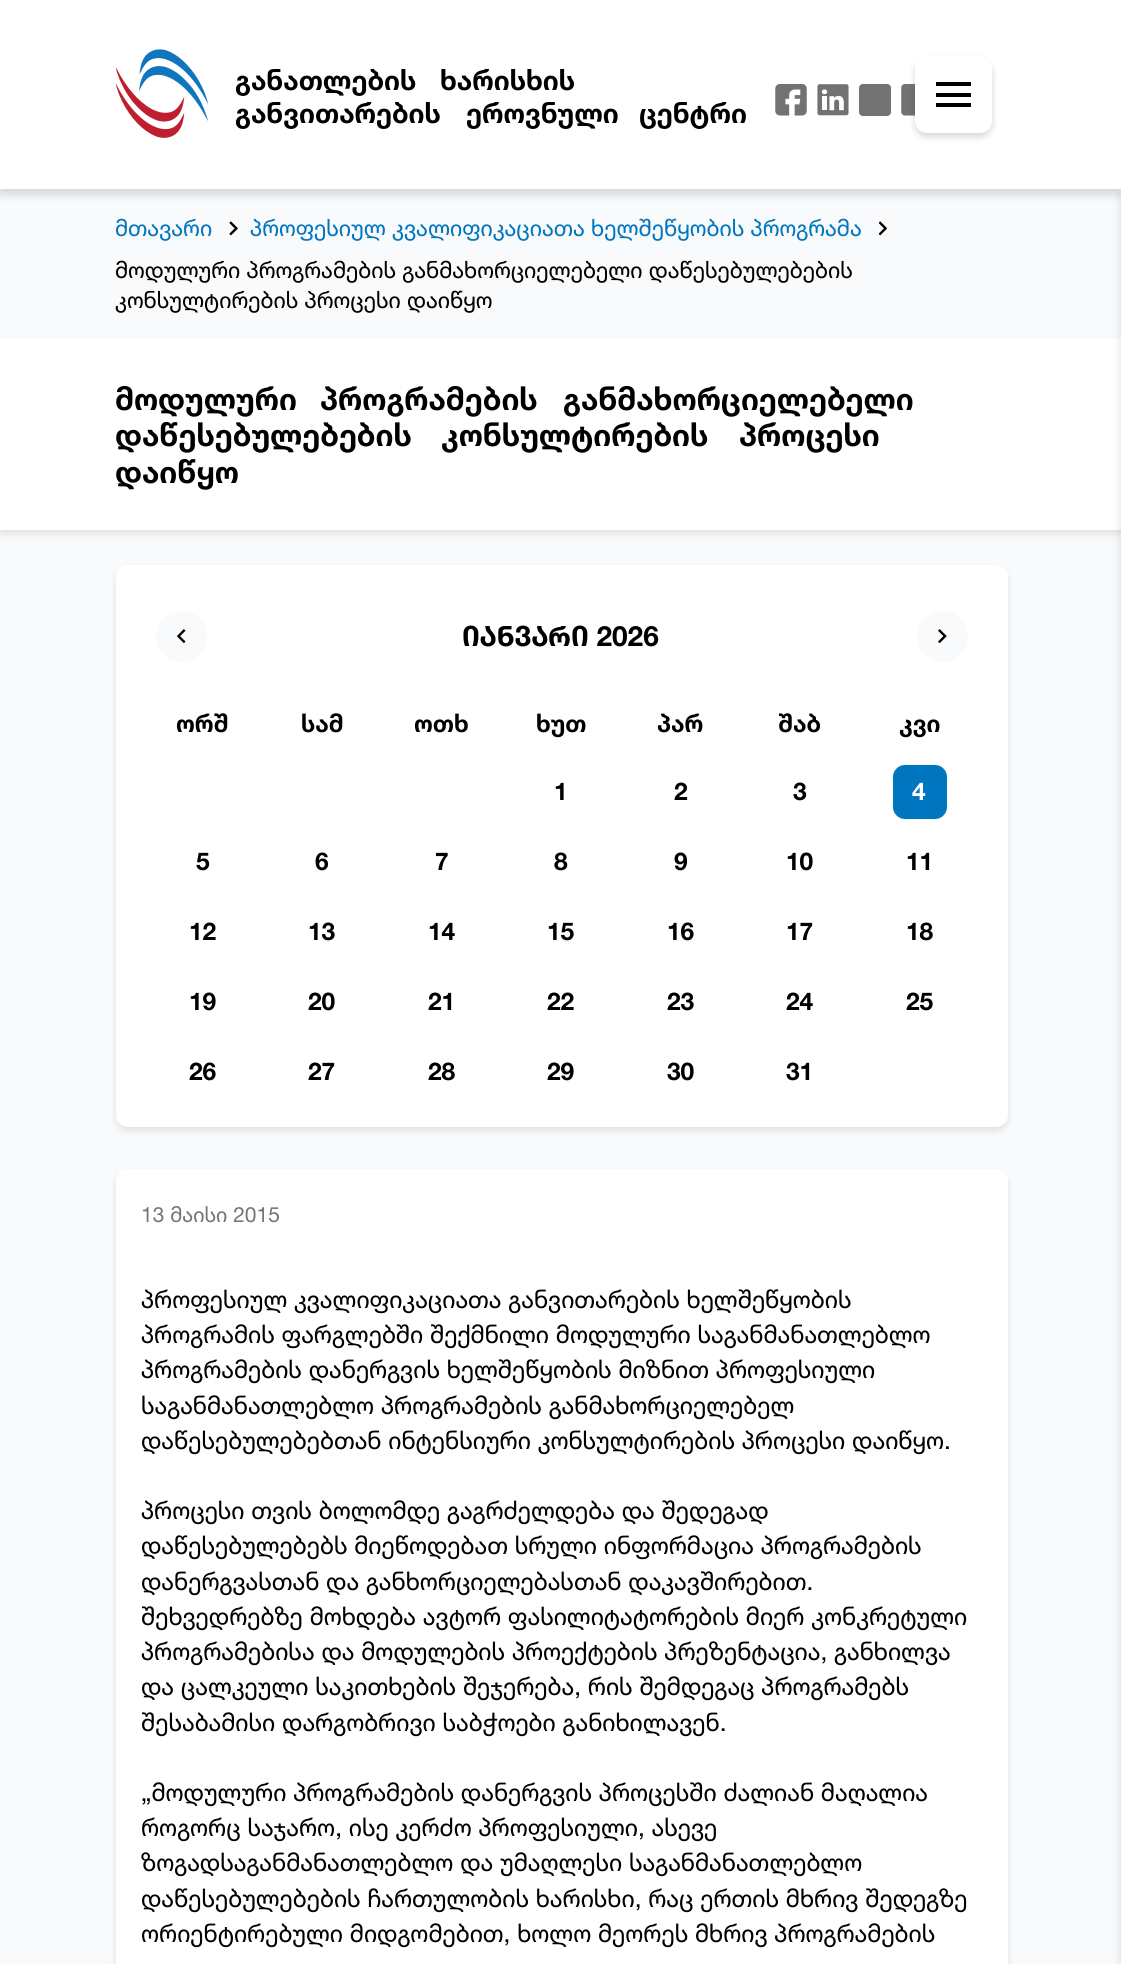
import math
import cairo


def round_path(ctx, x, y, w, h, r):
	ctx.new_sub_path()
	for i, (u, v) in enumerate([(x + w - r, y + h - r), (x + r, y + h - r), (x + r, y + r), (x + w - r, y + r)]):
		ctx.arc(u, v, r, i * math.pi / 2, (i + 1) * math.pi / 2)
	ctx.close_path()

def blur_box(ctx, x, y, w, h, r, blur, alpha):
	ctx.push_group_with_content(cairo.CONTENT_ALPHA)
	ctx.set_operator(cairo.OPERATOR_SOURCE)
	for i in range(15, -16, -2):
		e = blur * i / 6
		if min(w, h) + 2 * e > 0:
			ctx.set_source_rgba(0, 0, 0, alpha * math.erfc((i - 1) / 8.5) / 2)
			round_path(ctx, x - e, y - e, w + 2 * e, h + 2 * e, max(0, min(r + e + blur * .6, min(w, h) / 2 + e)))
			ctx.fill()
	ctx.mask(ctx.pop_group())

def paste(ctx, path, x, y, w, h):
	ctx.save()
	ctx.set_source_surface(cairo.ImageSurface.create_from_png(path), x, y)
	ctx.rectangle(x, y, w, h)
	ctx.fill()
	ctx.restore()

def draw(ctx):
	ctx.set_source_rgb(0.969, 0.98, 0.988)
	ctx.paint()
	ctx.set_source_rgb(0, 0, 0)
	blur_box(ctx, 0, 5, 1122, 189, 0, 5, 0.16)
	ctx.set_source_rgb(1, 1, 1)
	ctx.rectangle(0, 0, 1121, 189)
	ctx.fill()
	paste(ctx, 'media/1.png', 116, 49, 92, 89)
	ctx.select_font_face('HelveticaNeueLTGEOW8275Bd', cairo.FONT_SLANT_NORMAL, cairo.FONT_WEIGHT_BOLD)
	ctx.set_font_size(28)
	ctx.set_source_rgb(0, 0, 0)
	ctx.move_to(235, 90)
	ctx.show_text('განათლების')
	ctx.move_to(440, 90)
	ctx.show_text('ხარისხის')
	ctx.move_to(235, 123)
	ctx.show_text('განვითარების')
	ctx.move_to(466, 123)
	ctx.show_text('ეროვნული')
	ctx.move_to(639, 123)
	ctx.show_text('ცენტრი')
	paste(ctx, 'media/2.png', 775, 84, 32, 32)
	paste(ctx, 'media/3.png', 817, 84, 32, 32)
	paste(ctx, 'media/4.png', 859, 84, 32, 32)
	paste(ctx, 'media/5.png', 901, 84, 14, 32)
	ctx.set_source_rgb(0, 0, 0)
	blur_box(ctx, 915, 60, 77, 77, 12, 3.5, 0.16)
	ctx.set_source_rgb(1, 1, 1)
	round_path(ctx, 915, 56, 77, 77, 12)
	ctx.fill()
	ctx.set_source_rgb(0, 0, 0)
	ctx.rectangle(936, 82, 35, 4)
	ctx.rectangle(936, 93, 35, 4)
	ctx.rectangle(936, 103, 35, 4)
	ctx.fill()
	ctx.select_font_face('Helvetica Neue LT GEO')
	ctx.set_font_size(22.75)
	ctx.set_source_rgb(0, 0.463, 0.753)
	ctx.move_to(115, 236)
	ctx.show_text('მთავარი')
	paste(ctx, 'media/6.png', 229, 221, 9, 15)
	ctx.move_to(250, 236)
	ctx.show_text('პროფესიულ კვალიფიკაციათა ხელშეწყობის პროგრამა')
	paste(ctx, 'media/7.png', 879, 221, 8, 15)
	ctx.set_source_rgb(0, 0, 0)
	ctx.move_to(115, 278)
	ctx.show_text('მოდულური პროგრამების განმახორციელებელი დაწესებულებების')
	ctx.move_to(115, 308)
	ctx.show_text('კონსულტირების პროცესი დაიწყო')
	ctx.set_source_rgb(0, 0, 0)
	blur_box(ctx, 0, 341, 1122, 193, 0, 3.5, 0.1)
	ctx.set_source_rgb(1, 1, 1)
	ctx.rectangle(0, 338, 1121, 192)
	ctx.fill()
	ctx.set_source_rgb(0, 0, 0)
	blur_box(ctx, 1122, 194, 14, 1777, 0, 5, 0.16)
	ctx.select_font_face('HelveticaNeueLTGEOW8275Bd', cairo.FONT_SLANT_NORMAL, cairo.FONT_WEIGHT_BOLD)
	ctx.set_font_size(31.5)
	ctx.set_source_rgb(0, 0, 0)
	for x, y, s in [
		(115, 410, 'მოდულური'),
		(320, 410, 'პროგრამების'),
		(563, 410, 'განმახორციელებელი'),
		(115, 446, 'დაწესებულებების'),
		(441, 446, 'კონსულტირების'),
		(739, 446, 'პროცესი'),
		(115, 483, 'დაიწყო'),
	]:
		ctx.move_to(x, y)
		ctx.show_text(s)
	ctx.set_source_rgb(0, 0, 0)
	blur_box(ctx, 116, 569, 892, 562, 12, 3.5, 0.1)
	ctx.set_source_rgb(1, 1, 1)
	round_path(ctx, 116, 565, 892, 562, 12)
	ctx.fill()
	ctx.set_source_rgb(0.969, 0.98, 0.988)
	ctx.arc(181.5, 636.5, 25.5, 0, 2 * math.pi)
	ctx.fill()
	paste(ctx, 'media/8.png', 177, 629, 9, 15)
	ctx.select_font_face('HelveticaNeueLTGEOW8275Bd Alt', cairo.FONT_SLANT_NORMAL, cairo.FONT_WEIGHT_BOLD)
	ctx.set_font_size(28)
	ctx.set_source_rgb(0, 0, 0)
	ctx.move_to(462, 646)
	ctx.show_text('იანვარი 2026')
	ctx.set_source_rgb(0.969, 0.98, 0.988)
	ctx.new_path()
	ctx.arc(942.5, 636.5, 25.5, 0, 2 * math.pi)
	ctx.fill()
	paste(ctx, 'media/9.png', 938, 629, 9, 15)
	ctx.select_font_face('HelveticaNeueLTGEOW8275Bd', cairo.FONT_SLANT_NORMAL, cairo.FONT_WEIGHT_BOLD)
	ctx.set_font_size(24.5)
	ctx.set_source_rgb(0, 0, 0)
	for x, y, s in [
		(176, 732, 'ორშ'),
		(301, 732, 'სამ'),
		(414, 732, 'ოთხ'),
		(536, 732, 'ხუთ'),
		(657, 732, 'პარ'),
		(778, 732, 'შაბ'),
		(899, 732, 'კვი'),
		(554, 800, '1'),
		(674, 800, '2'),
		(793, 800, '3'),
	]:
		ctx.move_to(x, y)
		ctx.show_text(s)
	ctx.set_source_rgb(0, 0.463, 0.753)
	round_path(ctx, 893, 765, 54, 54, 12)
	ctx.fill()
	ctx.set_source_rgb(1, 1, 1)
	ctx.move_to(912, 800)
	ctx.show_text('4')
	ctx.set_source_rgb(0, 0, 0)
	for x, y, s in [
		(196, 870, '5'),
		(315, 870, '6'),
		(435, 870, '7'),
		(554, 870, '8'),
		(674, 870, '9'),
		(786, 870, '10'),
		(906, 870, '11'),
		(189, 940, '12'),
		(308, 940, '13'),
		(428, 940, '14'),
		(547, 940, '15'),
		(667, 940, '16'),
		(786, 940, '17'),
		(906, 940, '18'),
		(189, 1010, '19'),
		(308, 1010, '20'),
		(428, 1010, '21'),
		(547, 1010, '22'),
		(667, 1010, '23'),
		(786, 1010, '24'),
		(906, 1010, '25'),
		(189, 1080, '26'),
		(308, 1080, '27'),
		(428, 1080, '28'),
		(547, 1080, '29'),
		(667, 1080, '30'),
		(786, 1080, '31'),
	]:
		ctx.move_to(x, y)
		ctx.show_text(s)
	ctx.set_source_rgb(0, 0, 0)
	blur_box(ctx, 116, 1173, 892, 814, 12, 3.5, 0.1)
	ctx.set_source_rgb(1, 1, 1)
	round_path(ctx, 116, 1169, 892, 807, 12)
	ctx.fill()
	ctx.select_font_face('Helvetica Neue LT GEO')
	ctx.set_font_size(21)
	ctx.set_source_rgb(0.459, 0.459, 0.459)
	ctx.move_to(141, 1222)
	ctx.show_text('13 მაისი 2015')
	ctx.set_font_size(24.5)
	ctx.set_source_rgb(0, 0, 0)
	for x, y, s in [
		(141, 1308, 'პროფესიულ კვალიფიკაციათა განვითარების ხელშეწყობის'),
		(141, 1343, 'პროგრამის ფარგლებში შექმნილი მოდულური საგანმანათლებლო'),
		(141, 1378, 'პროგრამების დანერგვის ხელშეწყობის მიზნით პროფესიული'),
		(141, 1414, 'საგანმანათლებლო პროგრამების განმახორციელებელ'),
		(141, 1449, 'დაწესებულებებთან ინტენსიური კონსულტირების პროცესი დაიწყო.'),
		(141, 1519, 'პროცესი თვის ბოლომდე გაგრძელდება და შედეგად'),
		(141, 1554, 'დაწესებულებებს მიეწოდებათ სრული ინფორმაცია პროგრამების'),
		(141, 1590, 'დანერგვასთან და განხორციელებასთან დაკავშირებით.'),
		(141, 1625, 'შეხვედრებზე მოხდება ავტორ ფასილიტატორების მიერ კონკრეტული'),
		(141, 1660, 'პროგრამებისა და მოდულების პროექტების პრეზენტაცია, განხილვა'),
		(141, 1695, 'და ცალკეული საკითხების შეჯერება, რის შემდეგაც პროგრამებს'),
		(141, 1731, 'შესაბამისი დარგობრივი საბჭოები განიხილავენ.'),
		(141, 1801, '„მოდულური პროგრამების დანერგვის პროცესში ძალიან მაღალია'),
		(141, 1836, 'როგორც საჯარო, ისე კერძო პროფესიული, ასევე'),
		(141, 1871, 'ზოგადსაგანმანათლებლო და უმაღლესი საგანმანათლებლო'),
		(141, 1907, 'დაწესებულებების ჩართულობის ხარისხი, რაც ერთის მხრივ შედეგზე'),
		(141, 1942, 'ორიენტირებული მიდგომებით, ხოლო მეორეს მხრივ პროგრამების'),
	]:
		ctx.move_to(x, y)
		ctx.show_text(s)


surface = cairo.ImageSurface(cairo.FORMAT_RGB24, 1121, 1964)
ctx = cairo.Context(surface)
options = cairo.FontOptions()
options.set_hint_metrics(cairo.HINT_METRICS_OFF)
options.set_hint_style(cairo.HINT_STYLE_NONE)
ctx.set_font_options(options)
ctx.set_miter_limit(4)
draw(ctx)
surface.write_to_png('image.png')
